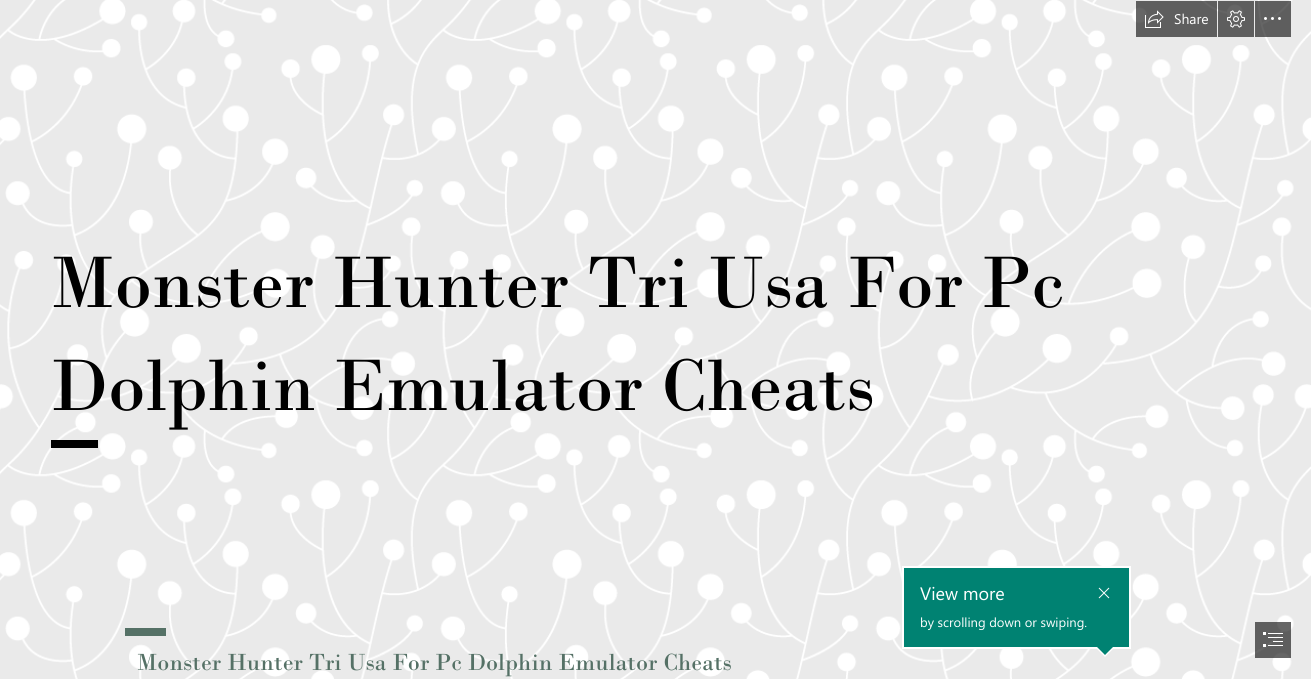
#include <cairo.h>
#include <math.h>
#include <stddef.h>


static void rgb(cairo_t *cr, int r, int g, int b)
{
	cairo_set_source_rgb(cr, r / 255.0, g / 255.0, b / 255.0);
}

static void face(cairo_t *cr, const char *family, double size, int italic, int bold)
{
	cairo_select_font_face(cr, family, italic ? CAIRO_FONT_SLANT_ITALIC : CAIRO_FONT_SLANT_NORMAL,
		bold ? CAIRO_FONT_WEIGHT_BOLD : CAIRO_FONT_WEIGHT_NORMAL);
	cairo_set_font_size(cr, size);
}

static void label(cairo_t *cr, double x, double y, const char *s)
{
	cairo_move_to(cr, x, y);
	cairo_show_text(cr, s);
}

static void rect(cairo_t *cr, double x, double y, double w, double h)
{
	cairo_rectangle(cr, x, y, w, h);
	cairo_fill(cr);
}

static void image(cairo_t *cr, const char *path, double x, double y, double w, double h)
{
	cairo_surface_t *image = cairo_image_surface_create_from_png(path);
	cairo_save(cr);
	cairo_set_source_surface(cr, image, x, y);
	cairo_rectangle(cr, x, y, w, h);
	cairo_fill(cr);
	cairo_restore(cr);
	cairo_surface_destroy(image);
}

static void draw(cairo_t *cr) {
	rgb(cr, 234, 234, 234);
	cairo_paint(cr);
	image(cr, "image3.png", 0, 0, 1311, 679);
	cairo_set_source_rgba(cr, 0, 0, 0, 0.6);
	rect(cr, 1136, 1, 81, 36);
	image(cr, "image0.png", 1145, 10, 19, 18);
	face(cr, "Segoe UI", 14, 0, 0);
	rgb(cr, 255, 255, 255);
	label(cr, 1174, 24, "Share");
	cairo_set_source_rgba(cr, 0, 0, 0, 0.6);
	rect(cr, 1218, 1, 36, 36);
	image(cr, "image1.png", 1227, 10, 18, 18);
	rect(cr, 1255, 1, 36, 36);
	image(cr, "image2.png", 1264, 17, 17, 3);
	face(cr, "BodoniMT", 76.75, 0, 0);
	rgb(cr, 0, 0, 0);
	label(cr, 51, 307, "Monster Hunter Tri Usa For Pc");
	label(cr, 51, 410, "Dolphin Emulator Cheats");
	rect(cr, 51, 440, 47, 8);
	rgb(cr, 85, 113, 102);
	rect(cr, 125, 628, 41, 8);
	face(cr, "BodoniMT", 24.6, 0, 0);
	label(cr, 137, 670, "Monster Hunter Tri Usa For Pc Dolphin Emulator Cheats");
	rgb(cr, 0, 130, 114);
	cairo_rectangle(cr, 903, 567, 227, 81);
	cairo_fill_preserve(cr);
	rgb(cr, 255, 255, 255);
	cairo_stroke(cr);
	face(cr, "Segoe UI", 18, 0, 0);
	label(cr, 920, 600, "View more");
	face(cr, "Segoe UI", 13, 0, 0);
	label(cr, 920, 627, "by scrolling down or swiping.");
	image(cr, "image4.png", 1098, 587, 12, 12);
	cairo_new_path(cr);
	cairo_move_to(cr, 1095, 647);
	cairo_line_to(cr, 1115, 647);
	cairo_line_to(cr, 1105, 657);
	cairo_close_path(cr);
	cairo_fill(cr);
	rgb(cr, 0, 130, 114);
	cairo_new_path(cr);
	cairo_move_to(cr, 1097, 647);
	cairo_line_to(cr, 1113, 647);
	cairo_line_to(cr, 1105, 655);
	cairo_close_path(cr);
	cairo_fill(cr);
	cairo_set_source_rgba(cr, 0, 0, 0, 0.6);
	rect(cr, 1255, 622, 36, 36);
	image(cr, "image5.png", 1263, 632, 20, 15);
}

int main(void) {
	cairo_surface_t *surface = cairo_image_surface_create(CAIRO_FORMAT_RGB24, 1311, 679);
	cairo_t *cr = cairo_create(surface);
	cairo_font_options_t *options = cairo_font_options_create();
	cairo_font_options_set_hint_metrics(options, CAIRO_HINT_METRICS_OFF);
	cairo_font_options_set_hint_style(options, CAIRO_HINT_STYLE_NONE);
	cairo_set_font_options(cr, options);
	cairo_set_miter_limit(cr, 4);
	draw(cr);
	cairo_surface_write_to_png(surface, "render.png");
	cairo_font_options_destroy(options);
	cairo_destroy(cr);
	cairo_surface_destroy(surface);
	return 0;
}
